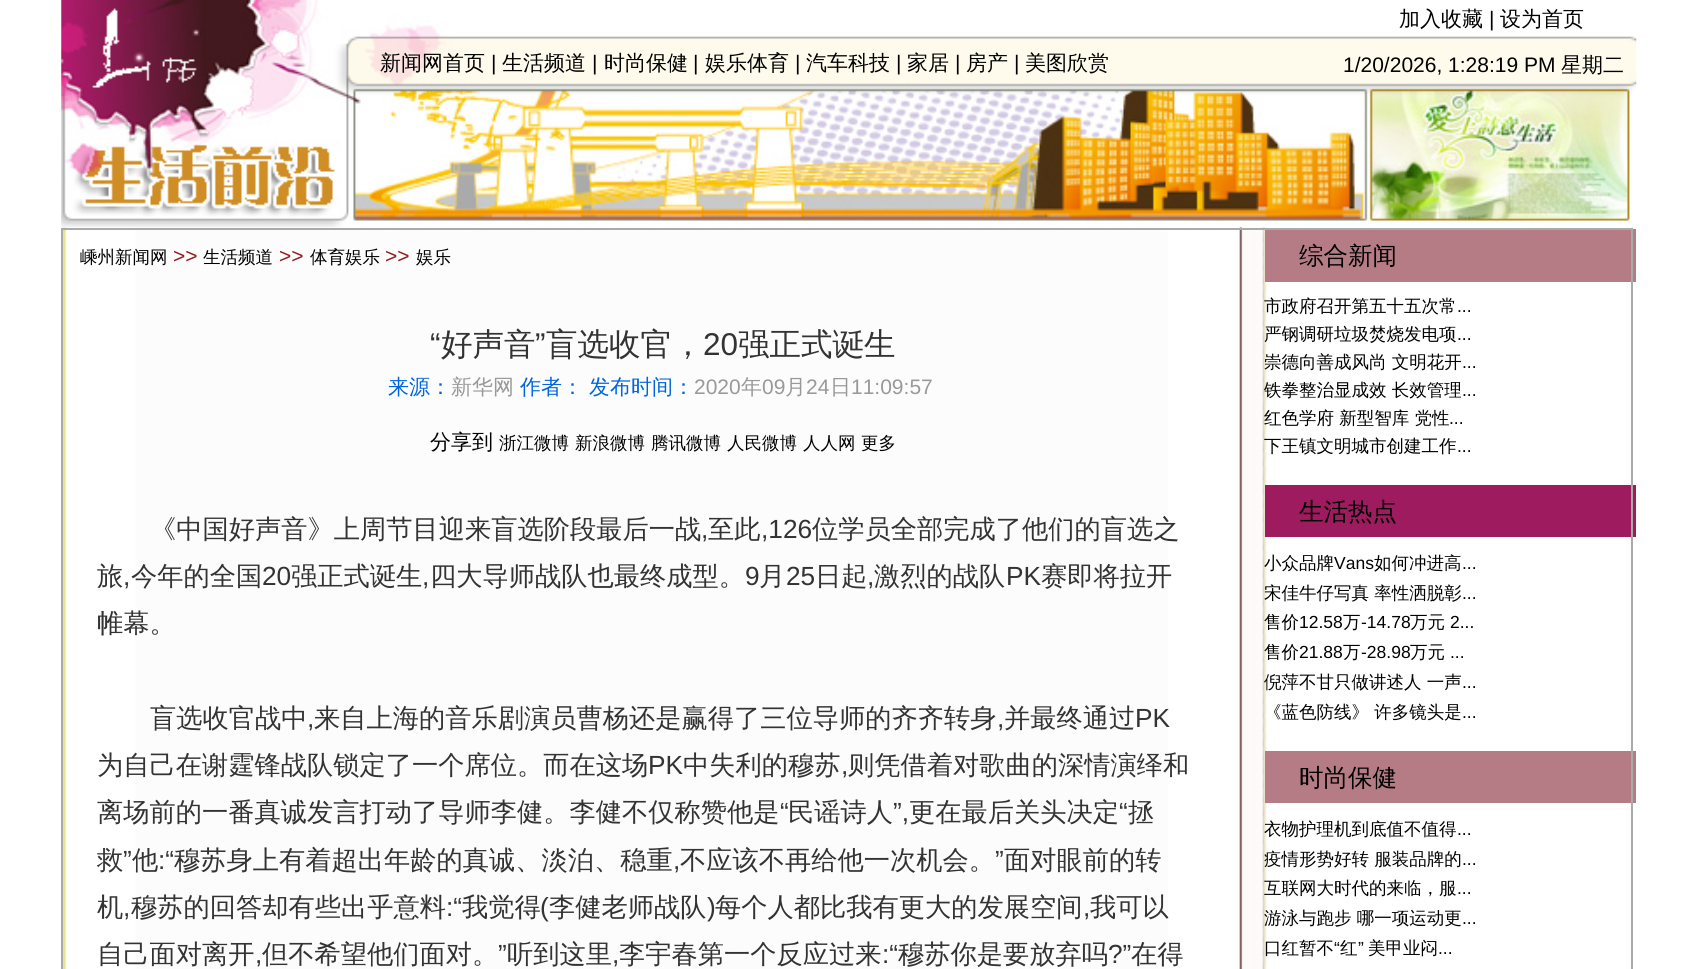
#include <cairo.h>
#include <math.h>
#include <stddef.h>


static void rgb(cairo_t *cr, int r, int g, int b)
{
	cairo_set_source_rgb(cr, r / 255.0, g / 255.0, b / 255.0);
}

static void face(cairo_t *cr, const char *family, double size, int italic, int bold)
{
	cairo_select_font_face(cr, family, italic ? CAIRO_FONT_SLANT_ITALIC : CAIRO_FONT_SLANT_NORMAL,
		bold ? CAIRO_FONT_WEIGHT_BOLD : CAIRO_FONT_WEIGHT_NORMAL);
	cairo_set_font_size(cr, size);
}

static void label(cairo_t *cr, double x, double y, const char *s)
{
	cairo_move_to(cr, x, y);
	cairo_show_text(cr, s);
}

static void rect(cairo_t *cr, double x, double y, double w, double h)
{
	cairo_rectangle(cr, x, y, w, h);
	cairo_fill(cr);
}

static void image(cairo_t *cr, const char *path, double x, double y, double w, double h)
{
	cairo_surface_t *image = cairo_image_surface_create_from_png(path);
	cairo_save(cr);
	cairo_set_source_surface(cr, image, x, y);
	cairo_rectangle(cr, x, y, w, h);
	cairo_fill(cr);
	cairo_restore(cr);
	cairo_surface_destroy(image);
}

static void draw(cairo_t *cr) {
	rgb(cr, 255, 255, 255);
	cairo_paint(cr);
	image(cr, "image0.png", 61, 0, 1576, 228);
	face(cr, "WenQuanYi Zen Hei Medium", 21, 0, 0);
	rgb(cr, 0, 0, 0);
	label(cr, 1399, 26, "加入收藏");
	face(cr, "Liberation Sans", 21, 0, 0);
	label(cr, 1489, 26, "|");
	face(cr, "WenQuanYi Zen Hei Medium", 21, 0, 0);
	label(cr, 1500, 26, "设为首页");
	label(cr, 380, 70, "新闻网首页");
	face(cr, "Liberation Sans", 21, 0, 0);
	label(cr, 491, 70, "|");
	face(cr, "WenQuanYi Zen Hei Medium", 21, 0, 0);
	label(cr, 502, 70, "生活频道");
	face(cr, "Liberation Sans", 21, 0, 0);
	label(cr, 592, 70, "|");
	face(cr, "WenQuanYi Zen Hei Medium", 21, 0, 0);
	label(cr, 604, 70, "时尚保健");
	face(cr, "Liberation Sans", 21, 0, 0);
	label(cr, 693, 70, "|");
	face(cr, "WenQuanYi Zen Hei Medium", 21, 0, 0);
	label(cr, 705, 70, "娱乐体育");
	face(cr, "Liberation Sans", 21, 0, 0);
	label(cr, 795, 70, "|");
	face(cr, "WenQuanYi Zen Hei Medium", 21, 0, 0);
	label(cr, 806, 70, "汽车科技");
	face(cr, "Liberation Sans", 21, 0, 0);
	label(cr, 896, 70, "|");
	face(cr, "WenQuanYi Zen Hei Medium", 21, 0, 0);
	label(cr, 907, 70, "家居");
	face(cr, "Liberation Sans", 21, 0, 0);
	label(cr, 955, 70, "|");
	face(cr, "WenQuanYi Zen Hei Medium", 21, 0, 0);
	label(cr, 966, 70, "房产");
	face(cr, "Liberation Sans", 21, 0, 0);
	label(cr, 1014, 70, "|");
	face(cr, "WenQuanYi Zen Hei Medium", 21, 0, 0);
	label(cr, 1025, 70, "美图欣赏");
	face(cr, "Liberation Sans", 21, 0, 0);
	label(cr, 1343, 72, "1/20/2026, 1:28:19 PM");
	face(cr, "WenQuanYi Zen Hei Medium", 21, 0, 0);
	label(cr, 1561, 72, "星期二");
	image(cr, "image1.png", 61, 227, 1572, 742);
	rgb(cr, 182, 124, 133);
	rect(cr, 1265, 229, 371, 53);
	rgb(cr, 169, 171, 168);
	rect(cr, 61, 228, 1572, 2);
	rgb(cr, 158, 27, 95);
	rect(cr, 1265, 485, 371, 52);
	rgb(cr, 182, 124, 133);
	rect(cr, 1265, 751, 371, 52);
	rgb(cr, 169, 171, 168);
	rect(cr, 1631, 228, 2, 741);
	rect(cr, 61, 228, 2, 741);
	face(cr, "WenQuanYi Zen Hei Medium", 17.5, 0, 0);
	rgb(cr, 0, 0, 0);
	label(cr, 80, 263, "嵊州新闻网");
	face(cr, "Liberation Sans", 21, 0, 0);
	rgb(cr, 143, 28, 31);
	label(cr, 173, 263, ">>");
	face(cr, "WenQuanYi Zen Hei Medium", 17.5, 0, 0);
	rgb(cr, 0, 0, 0);
	label(cr, 203, 263, "生活频道");
	face(cr, "Liberation Sans", 21, 0, 0);
	rgb(cr, 143, 28, 31);
	label(cr, 279, 263, ">>");
	face(cr, "WenQuanYi Zen Hei Medium", 17.5, 0, 0);
	rgb(cr, 0, 0, 0);
	label(cr, 310, 263, "体育娱乐");
	face(cr, "Liberation Sans", 21, 0, 0);
	rgb(cr, 143, 28, 31);
	label(cr, 385, 263, ">>");
	face(cr, "WenQuanYi Zen Hei Medium", 17.5, 0, 0);
	rgb(cr, 0, 0, 0);
	label(cr, 416, 263, "娱乐");
	face(cr, "Liberation Sans", 31.5, 0, 0);
	rgb(cr, 51, 51, 51);
	label(cr, 430, 355, "“");
	face(cr, "WenQuanYi Zen Hei Medium", 31.5, 0, 0);
	label(cr, 441, 355, "好声音");
	face(cr, "Liberation Sans", 31.5, 0, 0);
	label(cr, 535, 355, "”");
	face(cr, "WenQuanYi Zen Hei Medium", 31.5, 0, 0);
	label(cr, 546, 355, "盲选收官，");
	face(cr, "Liberation Sans", 31.5, 0, 0);
	label(cr, 703, 355, "20");
	face(cr, "WenQuanYi Zen Hei Medium", 31.5, 0, 0);
	label(cr, 738, 355, "强正式诞生");
	face(cr, "WenQuanYi Zen Hei Medium", 21, 0, 0);
	rgb(cr, 0, 100, 222);
	label(cr, 388, 394, "来源：");
	rgb(cr, 153, 153, 153);
	label(cr, 451, 394, "新华网");
	rgb(cr, 0, 100, 222);
	label(cr, 520, 394, "作者：");
	label(cr, 589, 394, "发布时间：");
	face(cr, "Liberation Sans", 21, 0, 0);
	rgb(cr, 153, 153, 153);
	label(cr, 694, 394, "2020");
	face(cr, "WenQuanYi Zen Hei Medium", 21, 0, 0);
	label(cr, 741, 394, "年");
	face(cr, "Liberation Sans", 21, 0, 0);
	label(cr, 762, 394, "09");
	face(cr, "WenQuanYi Zen Hei Medium", 21, 0, 0);
	label(cr, 785, 394, "月");
	face(cr, "Liberation Sans", 21, 0, 0);
	label(cr, 806, 394, "24");
	face(cr, "WenQuanYi Zen Hei Medium", 21, 0, 0);
	label(cr, 830, 394, "日");
	face(cr, "Liberation Sans", 21, 0, 0);
	label(cr, 851, 394, "11:09:57");
	face(cr, "WenQuanYi Zen Hei Medium", 21, 0, 0);
	rgb(cr, 0, 0, 0);
	label(cr, 430, 449, "分享到");
	face(cr, "WenQuanYi Zen Hei Medium", 17.5, 0, 0);
	label(cr, 499, 449, "浙江微博");
	label(cr, 575, 449, "新浪微博");
	label(cr, 651, 449, "腾讯微博");
	label(cr, 727, 449, "人民微博");
	label(cr, 803, 449, "人人网");
	label(cr, 861, 449, "更多");
	face(cr, "WenQuanYi Zen Hei Medium", 26.25, 0, 0);
	rgb(cr, 51, 51, 51);
	label(cr, 150, 538, "《中国好声音》上周节目迎来盲选阶段最后一战");
	face(cr, "Liberation Sans", 26.25, 0, 0);
	label(cr, 701, 538, ",");
	face(cr, "WenQuanYi Zen Hei Medium", 26.25, 0, 0);
	label(cr, 708, 538, "至此");
	face(cr, "Liberation Sans", 26.25, 0, 0);
	label(cr, 761, 538, ",126");
	face(cr, "WenQuanYi Zen Hei Medium", 26.25, 0, 0);
	label(cr, 812, 538, "位学员全部完成了他们的盲选之");
	label(cr, 97, 585, "旅");
	face(cr, "Liberation Sans", 26.25, 0, 0);
	label(cr, 123, 585, ",");
	face(cr, "WenQuanYi Zen Hei Medium", 26.25, 0, 0);
	label(cr, 131, 585, "今年的全国");
	face(cr, "Liberation Sans", 26.25, 0, 0);
	label(cr, 262, 585, "20");
	face(cr, "WenQuanYi Zen Hei Medium", 26.25, 0, 0);
	label(cr, 291, 585, "强正式诞生");
	face(cr, "Liberation Sans", 26.25, 0, 0);
	label(cr, 422, 585, ",");
	face(cr, "WenQuanYi Zen Hei Medium", 26.25, 0, 0);
	label(cr, 430, 585, "四大导师战队也最终成型。");
	face(cr, "Liberation Sans", 26.25, 0, 0);
	label(cr, 745, 585, "9");
	face(cr, "WenQuanYi Zen Hei Medium", 26.25, 0, 0);
	label(cr, 759, 585, "月");
	face(cr, "Liberation Sans", 26.25, 0, 0);
	label(cr, 786, 585, "25");
	face(cr, "WenQuanYi Zen Hei Medium", 26.25, 0, 0);
	label(cr, 815, 585, "日起");
	face(cr, "Liberation Sans", 26.25, 0, 0);
	label(cr, 867, 585, ",");
	face(cr, "WenQuanYi Zen Hei Medium", 26.25, 0, 0);
	label(cr, 874, 585, "激烈的战队");
	face(cr, "Liberation Sans", 26.25, 0, 0);
	label(cr, 1006, 585, "PK");
	face(cr, "WenQuanYi Zen Hei Medium", 26.25, 0, 0);
	label(cr, 1041, 585, "赛即将拉开");
	label(cr, 97, 632, "帷幕。");
	label(cr, 150, 727, "盲选收官战中");
	face(cr, "Liberation Sans", 26.25, 0, 0);
	label(cr, 307, 727, ",");
	face(cr, "WenQuanYi Zen Hei Medium", 26.25, 0, 0);
	label(cr, 314, 727, "来自上海的音乐剧演员曹杨还是赢得了三位导师的齐齐转身");
	face(cr, "Liberation Sans", 26.25, 0, 0);
	label(cr, 997, 727, ",");
	face(cr, "WenQuanYi Zen Hei Medium", 26.25, 0, 0);
	label(cr, 1004, 727, "并最终通过");
	face(cr, "Liberation Sans", 26.25, 0, 0);
	label(cr, 1135, 727, "PK");
	face(cr, "WenQuanYi Zen Hei Medium", 26.25, 0, 0);
	label(cr, 97, 774, "为自己在谢霆锋战队锁定了一个席位。而在这场");
	face(cr, "Liberation Sans", 26.25, 0, 0);
	label(cr, 648, 774, "PK");
	face(cr, "WenQuanYi Zen Hei Medium", 26.25, 0, 0);
	label(cr, 683, 774, "中失利的穆苏");
	face(cr, "Liberation Sans", 26.25, 0, 0);
	label(cr, 841, 774, ",");
	face(cr, "WenQuanYi Zen Hei Medium", 26.25, 0, 0);
	label(cr, 848, 774, "则凭借着对歌曲的深情演绎和");
	label(cr, 97, 821, "离场前的一番真诚发言打动了导师李健。李健不仅称赞他是");
	face(cr, "Liberation Sans", 26.25, 0, 0);
	label(cr, 780, 821, "“");
	face(cr, "WenQuanYi Zen Hei Medium", 26.25, 0, 0);
	label(cr, 788, 821, "民谣诗人");
	face(cr, "Liberation Sans", 26.25, 0, 0);
	label(cr, 893, 821, "”,");
	face(cr, "WenQuanYi Zen Hei Medium", 26.25, 0, 0);
	label(cr, 909, 821, "更在最后关头决定");
	face(cr, "Liberation Sans", 26.25, 0, 0);
	label(cr, 1119, 821, "“");
	face(cr, "WenQuanYi Zen Hei Medium", 26.25, 0, 0);
	label(cr, 1128, 821, "拯");
	label(cr, 97, 869, "救");
	face(cr, "Liberation Sans", 26.25, 0, 0);
	label(cr, 123, 869, "”");
	face(cr, "WenQuanYi Zen Hei Medium", 26.25, 0, 0);
	label(cr, 132, 869, "他");
	face(cr, "Liberation Sans", 26.25, 0, 0);
	label(cr, 158, 869, ":“");
	face(cr, "WenQuanYi Zen Hei Medium", 26.25, 0, 0);
	label(cr, 174, 869, "穆苏身上有着超出年龄的真诚、淡泊、稳重");
	label(cr, 680, 869, "不应该不再给他一次机会。");
	face(cr, "Liberation Sans", 26.25, 0, 0);
	label(cr, 995, 869, "”");
	face(cr, "WenQuanYi Zen Hei Medium", 26.25, 0, 0);
	label(cr, 1004, 869, "面对眼前的转");
	face(cr, "Liberation Sans", 26.25, 0, 0);
	label(cr, 673, 869, ",");
	face(cr, "WenQuanYi Zen Hei Medium", 26.25, 0, 0);
	label(cr, 97, 916, "机");
	face(cr, "Liberation Sans", 26.25, 0, 0);
	label(cr, 123, 916, ",");
	face(cr, "WenQuanYi Zen Hei Medium", 26.25, 0, 0);
	label(cr, 131, 916, "穆苏的回答却有些出乎意料");
	face(cr, "Liberation Sans", 26.25, 0, 0);
	label(cr, 446, 916, ":“");
	face(cr, "WenQuanYi Zen Hei Medium", 26.25, 0, 0);
	label(cr, 462, 916, "我觉得");
	face(cr, "Liberation Sans", 26.25, 0, 0);
	label(cr, 540, 916, "(");
	face(cr, "WenQuanYi Zen Hei Medium", 26.25, 0, 0);
	label(cr, 549, 916, "李健老师战队");
	face(cr, "Liberation Sans", 26.25, 0, 0);
	label(cr, 707, 916, ")");
	face(cr, "WenQuanYi Zen Hei Medium", 26.25, 0, 0);
	label(cr, 715, 916, "每个人都比我有更大的发展空间");
	face(cr, "Liberation Sans", 26.25, 0, 0);
	label(cr, 1083, 916, ",");
	face(cr, "WenQuanYi Zen Hei Medium", 26.25, 0, 0);
	label(cr, 1090, 916, "我可以");
	label(cr, 97, 963, "自己面对离开");
	face(cr, "Liberation Sans", 26.25, 0, 0);
	label(cr, 255, 963, ",");
	face(cr, "WenQuanYi Zen Hei Medium", 26.25, 0, 0);
	label(cr, 262, 963, "但不希望他们面对。");
	face(cr, "Liberation Sans", 26.25, 0, 0);
	label(cr, 498, 963, "”");
	face(cr, "WenQuanYi Zen Hei Medium", 26.25, 0, 0);
	label(cr, 507, 963, "听到这里");
	face(cr, "Liberation Sans", 26.25, 0, 0);
	label(cr, 612, 963, ",");
	face(cr, "WenQuanYi Zen Hei Medium", 26.25, 0, 0);
	label(cr, 619, 963, "李宇春第一个反应过来");
	face(cr, "Liberation Sans", 26.25, 0, 0);
	label(cr, 882, 963, ":“");
	face(cr, "WenQuanYi Zen Hei Medium", 26.25, 0, 0);
	label(cr, 898, 963, "穆苏你是要放弃吗");
	face(cr, "Liberation Sans", 26.25, 0, 0);
	label(cr, 1108, 963, "?”");
	face(cr, "WenQuanYi Zen Hei Medium", 26.25, 0, 0);
	label(cr, 1131, 963, "在得");
	face(cr, "WenQuanYi Zen Hei Medium", 24.5, 0, 0);
	rgb(cr, 0, 0, 0);
	label(cr, 1299, 264, "综合新闻");
	face(cr, "WenQuanYi Zen Hei Medium", 17.5, 0, 0);
	label(cr, 1264, 312, "市政府召开第五十五次常");
	face(cr, "Liberation Sans", 17.5, 0, 0);
	label(cr, 1457, 312, "...");
	face(cr, "WenQuanYi Zen Hei Medium", 17.5, 0, 0);
	label(cr, 1264, 340, "严钢调研垃圾焚烧发电项");
	face(cr, "Liberation Sans", 17.5, 0, 0);
	label(cr, 1457, 340, "...");
	face(cr, "WenQuanYi Zen Hei Medium", 17.5, 0, 0);
	label(cr, 1264, 368, "崇德向善成风尚 文明花开");
	face(cr, "Liberation Sans", 17.5, 0, 0);
	label(cr, 1462, 368, "...");
	face(cr, "WenQuanYi Zen Hei Medium", 17.5, 0, 0);
	label(cr, 1264, 396, "铁拳整治显成效 长效管理");
	face(cr, "Liberation Sans", 17.5, 0, 0);
	label(cr, 1462, 396, "...");
	face(cr, "WenQuanYi Zen Hei Medium", 17.5, 0, 0);
	label(cr, 1264, 424, "红色学府 新型智库 党性");
	face(cr, "Liberation Sans", 17.5, 0, 0);
	label(cr, 1449, 424, "...");
	face(cr, "WenQuanYi Zen Hei Medium", 17.5, 0, 0);
	label(cr, 1264, 452, "下王镇文明城市创建工作");
	face(cr, "Liberation Sans", 17.5, 0, 0);
	label(cr, 1457, 452, "...");
	face(cr, "WenQuanYi Zen Hei Medium", 24.5, 0, 0);
	label(cr, 1299, 520, "生活热点");
	face(cr, "WenQuanYi Zen Hei Medium", 17.5, 0, 0);
	label(cr, 1264, 569, "小众品牌");
	face(cr, "Liberation Sans", 17.5, 0, 0);
	label(cr, 1334, 569, "Vans");
	face(cr, "WenQuanYi Zen Hei Medium", 17.5, 0, 0);
	label(cr, 1374, 569, "如何冲进高");
	face(cr, "Liberation Sans", 17.5, 0, 0);
	label(cr, 1462, 569, "...");
	face(cr, "WenQuanYi Zen Hei Medium", 17.5, 0, 0);
	label(cr, 1264, 599, "宋佳牛仔写真 率性洒脱彰");
	face(cr, "Liberation Sans", 17.5, 0, 0);
	label(cr, 1462, 599, "...");
	face(cr, "WenQuanYi Zen Hei Medium", 17.5, 0, 0);
	label(cr, 1264, 628, "售价");
	face(cr, "Liberation Sans", 17.5, 0, 0);
	label(cr, 1299, 628, "12.58");
	face(cr, "WenQuanYi Zen Hei Medium", 17.5, 0, 0);
	label(cr, 1343, 628, "万");
	face(cr, "Liberation Sans", 17.5, 0, 0);
	label(cr, 1361, 628, "-14.78");
	face(cr, "WenQuanYi Zen Hei Medium", 17.5, 0, 0);
	label(cr, 1410, 628, "万元");
	face(cr, "Liberation Sans", 17.5, 0, 0);
	label(cr, 1450, 628, "2...");
	face(cr, "WenQuanYi Zen Hei Medium", 17.5, 0, 0);
	label(cr, 1264, 658, "售价");
	face(cr, "Liberation Sans", 17.5, 0, 0);
	label(cr, 1299, 658, "21.88");
	face(cr, "WenQuanYi Zen Hei Medium", 17.5, 0, 0);
	label(cr, 1343, 658, "万");
	face(cr, "Liberation Sans", 17.5, 0, 0);
	label(cr, 1361, 658, "-28.98");
	face(cr, "WenQuanYi Zen Hei Medium", 17.5, 0, 0);
	label(cr, 1410, 658, "万元");
	face(cr, "Liberation Sans", 17.5, 0, 0);
	label(cr, 1450, 658, "...");
	face(cr, "WenQuanYi Zen Hei Medium", 17.5, 0, 0);
	label(cr, 1264, 688, "倪萍不甘只做讲述人 一声");
	face(cr, "Liberation Sans", 17.5, 0, 0);
	label(cr, 1462, 688, "...");
	face(cr, "WenQuanYi Zen Hei Medium", 17.5, 0, 0);
	label(cr, 1264, 718, "《蓝色防线》 许多镜头是");
	face(cr, "Liberation Sans", 17.5, 0, 0);
	label(cr, 1462, 718, "...");
	face(cr, "WenQuanYi Zen Hei Medium", 24.5, 0, 0);
	label(cr, 1299, 786, "时尚保健");
	face(cr, "WenQuanYi Zen Hei Medium", 17.5, 0, 0);
	label(cr, 1264, 835, "衣物护理机到底值不值得");
	face(cr, "Liberation Sans", 17.5, 0, 0);
	label(cr, 1457, 835, "...");
	face(cr, "WenQuanYi Zen Hei Medium", 17.5, 0, 0);
	label(cr, 1264, 865, "疫情形势好转 服装品牌的");
	face(cr, "Liberation Sans", 17.5, 0, 0);
	label(cr, 1462, 865, "...");
	face(cr, "WenQuanYi Zen Hei Medium", 17.5, 0, 0);
	label(cr, 1264, 894, "互联网大时代的来临，服");
	face(cr, "Liberation Sans", 17.5, 0, 0);
	label(cr, 1457, 894, "...");
	face(cr, "WenQuanYi Zen Hei Medium", 17.5, 0, 0);
	label(cr, 1264, 924, "游泳与跑步 哪一项运动更");
	face(cr, "Liberation Sans", 17.5, 0, 0);
	label(cr, 1462, 924, "...");
	face(cr, "WenQuanYi Zen Hei Medium", 17.5, 0, 0);
	label(cr, 1264, 954, "口红暂不");
	face(cr, "Liberation Sans", 17.5, 0, 0);
	label(cr, 1334, 954, "“");
	face(cr, "WenQuanYi Zen Hei Medium", 17.5, 0, 0);
	label(cr, 1340, 954, "红");
	face(cr, "Liberation Sans", 17.5, 0, 0);
	label(cr, 1358, 954, "”");
	face(cr, "WenQuanYi Zen Hei Medium", 17.5, 0, 0);
	label(cr, 1368, 954, "美甲业闷");
	face(cr, "Liberation Sans", 17.5, 0, 0);
	label(cr, 1438, 954, "...");
}

int main(void) {
	cairo_surface_t *surface = cairo_image_surface_create(CAIRO_FORMAT_RGB24, 1695, 969);
	cairo_t *cr = cairo_create(surface);
	cairo_font_options_t *options = cairo_font_options_create();
	cairo_font_options_set_hint_metrics(options, CAIRO_HINT_METRICS_OFF);
	cairo_font_options_set_hint_style(options, CAIRO_HINT_STYLE_NONE);
	cairo_set_font_options(cr, options);
	cairo_set_miter_limit(cr, 4);
	draw(cr);
	cairo_surface_write_to_png(surface, "render.png");
	cairo_font_options_destroy(options);
	cairo_destroy(cr);
	cairo_surface_destroy(surface);
	return 0;
}
